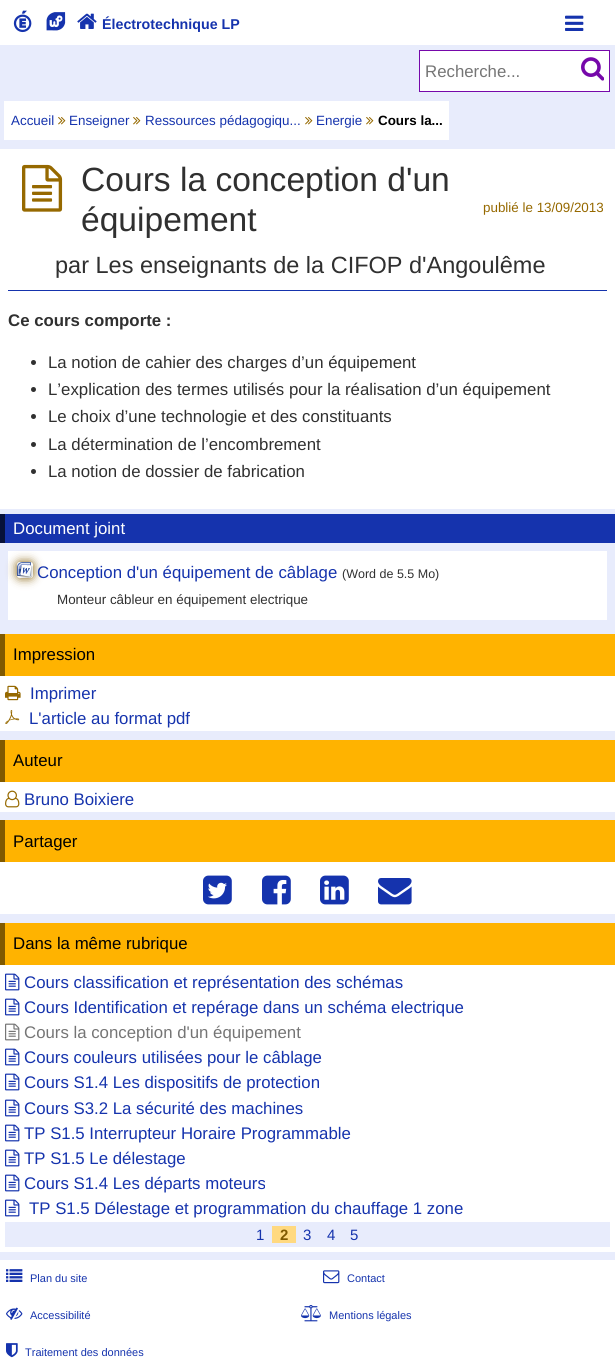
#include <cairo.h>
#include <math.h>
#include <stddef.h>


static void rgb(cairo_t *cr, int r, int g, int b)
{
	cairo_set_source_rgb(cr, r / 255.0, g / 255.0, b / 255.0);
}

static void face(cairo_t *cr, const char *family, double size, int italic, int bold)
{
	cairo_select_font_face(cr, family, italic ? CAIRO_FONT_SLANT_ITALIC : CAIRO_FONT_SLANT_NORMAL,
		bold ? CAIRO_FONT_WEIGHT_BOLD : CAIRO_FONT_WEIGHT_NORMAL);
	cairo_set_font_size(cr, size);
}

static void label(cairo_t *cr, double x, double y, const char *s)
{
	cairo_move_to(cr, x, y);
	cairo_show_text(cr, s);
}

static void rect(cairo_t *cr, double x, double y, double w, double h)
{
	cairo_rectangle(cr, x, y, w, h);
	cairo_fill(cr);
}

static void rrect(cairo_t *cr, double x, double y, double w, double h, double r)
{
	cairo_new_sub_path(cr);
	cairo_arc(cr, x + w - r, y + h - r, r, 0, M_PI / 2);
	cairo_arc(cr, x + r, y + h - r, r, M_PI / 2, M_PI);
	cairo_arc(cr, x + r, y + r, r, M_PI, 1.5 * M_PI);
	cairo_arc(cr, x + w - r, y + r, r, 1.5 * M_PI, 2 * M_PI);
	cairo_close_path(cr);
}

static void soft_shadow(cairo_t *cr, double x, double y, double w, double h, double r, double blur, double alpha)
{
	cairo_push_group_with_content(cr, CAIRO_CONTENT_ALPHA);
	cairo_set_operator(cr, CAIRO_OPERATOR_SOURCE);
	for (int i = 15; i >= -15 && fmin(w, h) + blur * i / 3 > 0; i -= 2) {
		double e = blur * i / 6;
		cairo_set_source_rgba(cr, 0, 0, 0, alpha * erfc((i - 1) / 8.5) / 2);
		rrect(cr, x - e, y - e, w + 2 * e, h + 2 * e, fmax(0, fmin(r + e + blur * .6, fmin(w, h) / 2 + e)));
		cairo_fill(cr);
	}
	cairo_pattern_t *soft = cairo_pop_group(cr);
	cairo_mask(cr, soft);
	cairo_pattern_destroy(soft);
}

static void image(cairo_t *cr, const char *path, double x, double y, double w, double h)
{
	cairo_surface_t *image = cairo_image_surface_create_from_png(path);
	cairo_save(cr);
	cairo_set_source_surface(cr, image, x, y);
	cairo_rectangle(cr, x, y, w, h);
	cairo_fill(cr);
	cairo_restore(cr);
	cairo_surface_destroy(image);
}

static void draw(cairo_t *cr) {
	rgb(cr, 232, 236, 252);
	cairo_paint(cr);
	rgb(cr, 255, 255, 255);
	rect(cr, 0, 0, 615, 45);
	image(cr, "image0.png", 13, 10, 19, 23);
	image(cr, "image1.png", 46, 12, 20, 19);
	image(cr, "image2.png", 77, 13, 20, 16);
	face(cr, "Liberation Sans", 14.25, 0, 1);
	rgb(cr, 21, 51, 173);
	label(cr, 102, 29, "Électrotechnique LP");
	image(cr, "image3.png", 565, 15, 19, 16);
	rgb(cr, 255, 255, 255);
	cairo_rectangle(cr, 419.5, 50.5, 190, 41);
	cairo_fill_preserve(cr);
	rgb(cr, 118, 8, 170);
	cairo_set_line_width(cr, 1);
	cairo_stroke(cr);
	face(cr, "Liberation Sans", 16.8, 0, 0);
	rgb(cr, 117, 117, 117);
	label(cr, 425, 77, "Recherche...");
	image(cr, "image4.png", 581, 57, 23, 24);
	rgb(cr, 255, 255, 255);
	rect(cr, 4, 101, 445, 39);
	face(cr, "Liberation Sans", 13.4, 0, 0);
	rgb(cr, 21, 51, 173);
	label(cr, 11, 125, "Accueil");
	image(cr, "image5.png", 58, 117, 8, 8);
	label(cr, 69, 125, "Enseigner");
	image(cr, "image5.png", 133, 117, 8, 8);
	label(cr, 145, 125, "Ressources pédagogiqu...");
	image(cr, "image5.png", 305, 117, 8, 8);
	label(cr, 316, 125, "Energie");
	image(cr, "image5.png", 366, 117, 8, 8);
	face(cr, "Liberation Sans", 13.4, 0, 1);
	rgb(cr, 0, 0, 0);
	label(cr, 378, 125, "Cours la...");
	rgb(cr, 255, 255, 255);
	rect(cr, 0, 149, 615, 360);
	image(cr, "image6.png", 22, 164, 41, 48);
	face(cr, "Liberation Sans", 33.6, 0, 0);
	rgb(cr, 48, 48, 48);
	label(cr, 81, 191, "Cours la conception d'un");
	label(cr, 81, 231, "équipement");
	face(cr, "Liberation Sans", 13.4, 0, 0);
	rgb(cr, 150, 105, 0);
	label(cr, 483, 212, "publié le 13/09/2013");
	face(cr, "Liberation Sans", 23.5, 0, 0);
	rgb(cr, 48, 48, 48);
	label(cr, 55, 273, "par Les enseignants de la CIFOP d'Angoulême");
	rgb(cr, 21, 51, 173);
	rect(cr, 8, 290, 599, 1);
	face(cr, "Liberation Sans", 16.8, 0, 1);
	rgb(cr, 48, 48, 48);
	label(cr, 8, 326, "Ce cours comporte :");
	cairo_new_path(cr);
	cairo_arc(cr, 33.5, 362.5, 2.5, 0, 2 * M_PI);
	cairo_fill(cr);
	face(cr, "Liberation Sans", 16.8, 0, 0);
	label(cr, 48, 368, "La notion de cahier des charges d’un équipement");
	cairo_new_path(cr);
	cairo_arc(cr, 33.5, 389.5, 2.5, 0, 2 * M_PI);
	cairo_fill(cr);
	label(cr, 48, 395, "L’explication des termes utilisés pour la réalisation d’un équipement");
	cairo_new_path(cr);
	cairo_arc(cr, 33.5, 416.5, 2.5, 0, 2 * M_PI);
	cairo_fill(cr);
	label(cr, 48, 422, "Le choix d’une technologie et des constituants");
	cairo_new_path(cr);
	cairo_arc(cr, 33.5, 444.5, 2.5, 0, 2 * M_PI);
	cairo_fill(cr);
	label(cr, 48, 450, "La détermination de l’encombrement");
	cairo_new_path(cr);
	cairo_arc(cr, 33.5, 471.5, 2.5, 0, 2 * M_PI);
	cairo_fill(cr);
	label(cr, 48, 477, "La notion de dossier de fabrication");
	rgb(cr, 21, 51, 173);
	rect(cr, 5, 514, 610, 29);
	rgb(cr, 7, 17, 57);
	rect(cr, 0, 514, 5, 29);
	rgb(cr, 255, 255, 255);
	label(cr, 13, 534, "Document joint");
	rect(cr, 8, 551, 599, 69);
	rgb(cr, 128, 89, 0);
	soft_shadow(cr, 17, 562, 16, 16, 3, 5, 1);
	image(cr, "image7.png", 17, 562, 16, 16);
	rgb(cr, 21, 51, 173);
	label(cr, 37, 578, "Conception d'un équipement de câblage");
	face(cr, "Liberation Sans", 12.5, 0, 0);
	rgb(cr, 48, 48, 48);
	label(cr, 342, 578, "(Word de 5.5 Mo)");
	face(cr, "Liberation Sans", 13.4, 0, 0);
	label(cr, 57, 604, "Monteur câbleur en équipement electrique");
	rgb(cr, 255, 255, 255);
	rect(cr, 0, 676, 615, 55);
	rgb(cr, 255, 179, 0);
	rect(cr, 5, 634, 610, 42);
	rgb(cr, 128, 89, 0);
	rect(cr, 0, 634, 5, 42);
	face(cr, "Liberation Sans", 16.8, 0, 0);
	rgb(cr, 0, 0, 0);
	label(cr, 13, 660, "Impression");
	image(cr, "image8.png", 5, 685, 16, 16);
	rgb(cr, 21, 51, 173);
	label(cr, 30, 699, "Imprimer");
	image(cr, "image9.png", 5, 710, 15, 14);
	label(cr, 29, 724, "L'article au format pdf");
	rgb(cr, 255, 255, 255);
	rect(cr, 0, 782, 615, 30);
	rgb(cr, 255, 179, 0);
	rect(cr, 5, 740, 610, 42);
	rgb(cr, 128, 89, 0);
	rect(cr, 0, 740, 5, 42);
	rgb(cr, 0, 0, 0);
	label(cr, 13, 766, "Auteur");
	image(cr, "image10.png", 5, 790, 15, 18);
	rgb(cr, 21, 51, 173);
	label(cr, 24, 805, "Bruno Boixiere");
	rgb(cr, 255, 255, 255);
	rect(cr, 0, 862, 615, 52);
	rgb(cr, 255, 179, 0);
	rect(cr, 5, 820, 610, 42);
	rgb(cr, 128, 89, 0);
	rect(cr, 0, 820, 5, 42);
	rgb(cr, 0, 0, 0);
	label(cr, 13, 847, "Partager");
	image(cr, "image11.png", 203, 875, 29, 30);
	image(cr, "image12.png", 262, 875, 29, 30);
	image(cr, "image13.png", 320, 875, 29, 30);
	image(cr, "image14.png", 378, 878, 34, 27);
	rgb(cr, 255, 255, 255);
	rect(cr, 0, 965, 615, 287);
	rgb(cr, 255, 179, 0);
	rect(cr, 5, 923, 610, 42);
	rgb(cr, 128, 89, 0);
	rect(cr, 0, 923, 5, 42);
	rgb(cr, 0, 0, 0);
	label(cr, 13, 949, "Dans la même rubrique");
	image(cr, "image15.png", 5, 973, 15, 18);
	rgb(cr, 21, 51, 173);
	label(cr, 24, 988, "Cours classification et représentation des schémas");
	image(cr, "image15.png", 5, 998, 15, 18);
	label(cr, 24, 1013, "Cours Identification et repérage dans un schéma electrique");
	image(cr, "image16.png", 5, 1023, 15, 18);
	rgb(cr, 117, 117, 117);
	label(cr, 24, 1038, "Cours la conception d'un équipement");
	image(cr, "image15.png", 5, 1048, 15, 18);
	rgb(cr, 21, 51, 173);
	label(cr, 24, 1063, "Cours couleurs utilisées pour le câblage");
	image(cr, "image15.png", 5, 1073, 15, 18);
	label(cr, 24, 1088, "Cours S1.4 Les dispositifs de protection");
	image(cr, "image15.png", 5, 1099, 15, 18);
	label(cr, 24, 1114, "Cours S3.2 La sécurité des machines");
	image(cr, "image15.png", 5, 1124, 15, 18);
	label(cr, 24, 1139, "TP S1.5 Interrupteur Horaire Programmable");
	image(cr, "image15.png", 5, 1149, 15, 18);
	label(cr, 24, 1164, "TP S1.5 Le délestage");
	image(cr, "image15.png", 5, 1174, 15, 18);
	label(cr, 24, 1189, "Cours S1.4 Les départs moteurs");
	image(cr, "image15.png", 5, 1199, 15, 18);
	label(cr, 29, 1214, "TP S1.5 Délestage et programmation du chauffage 1 zone");
	rgb(cr, 232, 236, 252);
	rect(cr, 5, 1222, 605, 25);
	face(cr, "Liberation Sans", 15, 0, 0);
	rgb(cr, 21, 51, 173);
	label(cr, 256, 1240, "1");
	rgb(cr, 255, 217, 128);
	rect(cr, 272, 1226, 24, 17);
	face(cr, "Liberation Sans", 15, 0, 1);
	rgb(cr, 128, 89, 0);
	label(cr, 280, 1240, "2");
	face(cr, "Liberation Sans", 15, 0, 0);
	rgb(cr, 21, 51, 173);
	label(cr, 303, 1240, "3");
	label(cr, 327, 1240, "4");
	label(cr, 350, 1240, "5");
	rgb(cr, 255, 255, 255);
	rect(cr, 0, 1260, 615, 104);
	image(cr, "image17.png", 6, 1269, 17, 13);
	face(cr, "Liberation Sans", 11, 0, 0);
	rgb(cr, 21, 51, 173);
	label(cr, 30, 1282, "Plan du site");
	image(cr, "image18.png", 323, 1270, 17, 14);
	label(cr, 347, 1282, "Contact");
	image(cr, "image19.png", 6, 1307, 17, 13);
	label(cr, 30, 1319, "Accessibilité");
	image(cr, "image20.png", 301, 1305, 20, 17);
	label(cr, 329, 1319, "Mentions légales");
	image(cr, "image21.png", 6, 1343, 12, 15);
	label(cr, 25, 1356, "Traitement des données");
}

int main(void) {
	cairo_surface_t *surface = cairo_image_surface_create(CAIRO_FORMAT_RGB24, 615, 1364);
	cairo_t *cr = cairo_create(surface);
	cairo_font_options_t *options = cairo_font_options_create();
	cairo_font_options_set_hint_metrics(options, CAIRO_HINT_METRICS_OFF);
	cairo_font_options_set_hint_style(options, CAIRO_HINT_STYLE_NONE);
	cairo_set_font_options(cr, options);
	cairo_set_miter_limit(cr, 4);
	draw(cr);
	cairo_surface_write_to_png(surface, "render.png");
	cairo_font_options_destroy(options);
	cairo_destroy(cr);
	cairo_surface_destroy(surface);
	return 0;
}
